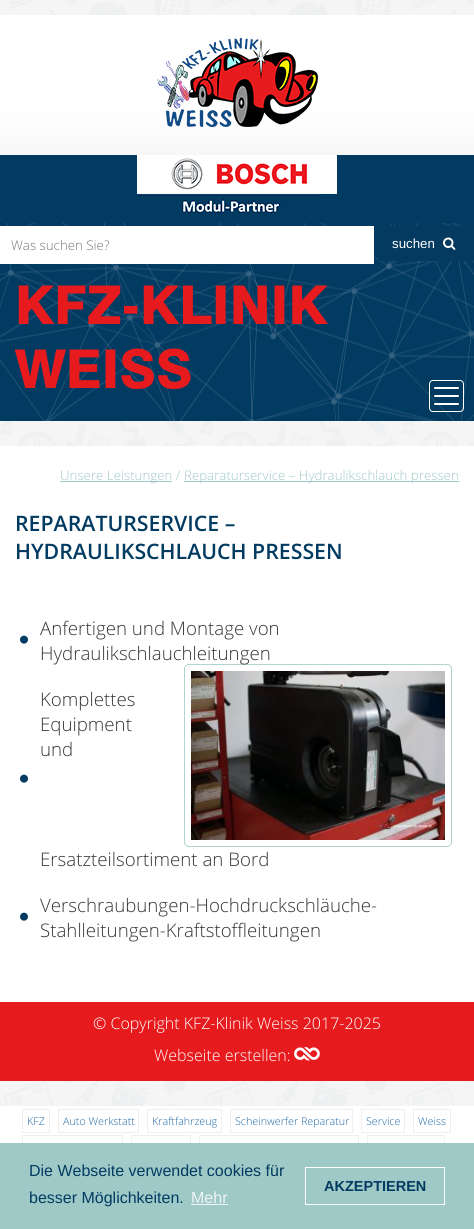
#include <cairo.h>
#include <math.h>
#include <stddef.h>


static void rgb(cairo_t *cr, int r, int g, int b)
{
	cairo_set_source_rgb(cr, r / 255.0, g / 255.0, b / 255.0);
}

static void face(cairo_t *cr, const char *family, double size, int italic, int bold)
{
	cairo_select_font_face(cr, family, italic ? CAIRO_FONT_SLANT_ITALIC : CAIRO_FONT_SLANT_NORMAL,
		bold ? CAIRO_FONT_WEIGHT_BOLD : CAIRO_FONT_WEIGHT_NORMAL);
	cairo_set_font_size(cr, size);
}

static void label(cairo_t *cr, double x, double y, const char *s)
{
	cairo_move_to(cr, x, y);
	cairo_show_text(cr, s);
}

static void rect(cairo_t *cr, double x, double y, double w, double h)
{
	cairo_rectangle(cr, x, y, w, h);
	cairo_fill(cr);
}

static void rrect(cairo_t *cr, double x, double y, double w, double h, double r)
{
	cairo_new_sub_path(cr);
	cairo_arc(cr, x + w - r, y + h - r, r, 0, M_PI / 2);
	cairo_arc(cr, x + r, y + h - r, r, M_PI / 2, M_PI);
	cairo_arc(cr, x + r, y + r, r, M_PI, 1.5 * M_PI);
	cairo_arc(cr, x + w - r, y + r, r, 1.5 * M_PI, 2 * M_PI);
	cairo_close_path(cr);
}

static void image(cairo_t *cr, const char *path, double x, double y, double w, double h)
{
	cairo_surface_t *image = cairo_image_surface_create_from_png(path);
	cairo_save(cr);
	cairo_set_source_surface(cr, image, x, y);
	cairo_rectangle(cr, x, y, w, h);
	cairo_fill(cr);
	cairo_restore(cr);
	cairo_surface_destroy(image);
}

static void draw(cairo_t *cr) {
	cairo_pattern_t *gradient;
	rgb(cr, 255, 255, 255);
	cairo_paint(cr);
	image(cr, "image0.png", 0, 0, 474, 1106);
	rgb(cr, 2, 59, 97);
	rect(cr, 0, 155, 474, 68);
	gradient = cairo_pattern_create_linear(237, 15, 237, 155);
	cairo_pattern_add_color_stop_rgba(gradient, 0.67, 1, 1, 1, 1);
	cairo_pattern_add_color_stop_rgba(gradient, 1, 0.969, 0.969, 0.969, 1);
	cairo_set_source(cr, gradient);
	cairo_pattern_destroy(gradient);
	rect(cr, 0, 15, 474, 140);
	image(cr, "image1.png", 157, 38, 161, 89);
	image(cr, "image2.png", 137, 155, 200, 58);
	image(cr, "image3.png", 0, 223, 474, 198);
	rgb(cr, 255, 255, 255);
	rect(cr, 0, 226, 374, 38);
	face(cr, "Open Sans Light", 13.3, 0, 0);
	rgb(cr, 117, 117, 117);
	label(cr, 11, 250, "Was suchen Sie?");
	rgb(cr, 4, 58, 96);
	rect(cr, 379, 226, 95, 35);
	face(cr, "Liberation Sans", 13.3, 0, 0);
	rgb(cr, 255, 255, 255);
	label(cr, 392, 248, "suchen");
	image(cr, "image4.png", 443, 237, 13, 13);
	face(cr, "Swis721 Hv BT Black", 53.5, 0, 0);
	rgb(cr, 231, 27, 29);
	label(cr, 15, 324, "KFZ-KLINIK");
	label(cr, 15, 388, "WEISS");
	rrect(cr, 429.5, 380.5, 34, 31, 3.5);
	rgb(cr, 255, 255, 255);
	cairo_set_line_width(cr, 1);
	cairo_stroke(cr);
	rrect(cr, 434, 387, 25, 2, 1);
	cairo_fill(cr);
	rrect(cr, 434, 395, 25, 2, 1);
	cairo_fill(cr);
	rrect(cr, 434, 403, 25, 2, 1);
	cairo_fill(cr);
	rect(cr, 0, 446, 474, 556);
	rgb(cr, 159, 201, 198);
	rect(cr, 60, 481, 112, 1);
	face(cr, "Open Sans Light", 13.3, 0, 0);
	label(cr, 60, 480, "Unsere Leistungen /");
	rect(cr, 184, 481, 275, 1);
	label(cr, 184, 480, "Reparaturservice – Hydraulikschlauch pressen");
	face(cr, "Open Sans SemiBold", 21.3, 0, 0);
	rgb(cr, 2, 59, 97);
	label(cr, 15, 531, "REPARATURSERVICE –");
	label(cr, 15, 559, "HYDRAULIKSCHLAUCH PRESSEN");
	image(cr, "image5.png", 20, 635, 8, 9);
	face(cr, "Open Sans Light", 18.7, 0, 0);
	rgb(cr, 54, 54, 54);
	label(cr, 40, 635, "Anfertigen und Montage von");
	image(cr, "image6.png", 191, 671, 254, 169);
	rrect(cr, 184.5, 664.5, 267, 182, 4.5);
	rgb(cr, 178, 212, 209);
	cairo_stroke(cr);
	rgb(cr, 54, 54, 54);
	label(cr, 40, 660, "Hydraulikschlauchleitungen");
	label(cr, 40, 706, "Komplettes");
	label(cr, 40, 731, "Equipment");
	label(cr, 40, 756, "und");
	image(cr, "image5.png", 20, 774, 8, 9);
	label(cr, 40, 866, "Ersatzteilsortiment an Bord");
	image(cr, "image5.png", 20, 912, 8, 9);
	label(cr, 40, 912, "Verschraubungen-Hochdruckschläuche-");
	label(cr, 40, 937, "Stahlleitungen-Kraftstoffleitungen");
	rgb(cr, 231, 27, 29);
	rect(cr, 0, 1002, 474, 79);
	face(cr, "Open Sans Light", 16, 0, 0);
	rgb(cr, 255, 255, 255);
	label(cr, 93, 1029, "© Copyright KFZ-Klinik Weiss 2017-2025");
	label(cr, 154, 1061, "Webseite erstellen:");
	image(cr, "image7.png", 294, 1047, 26, 14);
	cairo_rectangle(cr, 22.5, 1109.5, 27, 23);
	rgb(cr, 239, 239, 239);
	cairo_stroke(cr);
	face(cr, "Open Sans Light", 10.75, 0, 0);
	rgb(cr, 30, 104, 164);
	label(cr, 27, 1125, "KFZ");
	cairo_rectangle(cr, 58.5, 1109.5, 80, 23);
	rgb(cr, 239, 239, 239);
	cairo_stroke(cr);
	rgb(cr, 30, 104, 164);
	label(cr, 63, 1125, "Auto Werkstatt");
	cairo_rectangle(cr, 147.5, 1109.5, 74, 23);
	rgb(cr, 239, 239, 239);
	cairo_stroke(cr);
	rgb(cr, 30, 104, 164);
	label(cr, 152, 1125, "Kraftfahrzeug");
	cairo_rectangle(cr, 230.5, 1109.5, 122, 23);
	rgb(cr, 239, 239, 239);
	cairo_stroke(cr);
	rgb(cr, 30, 104, 164);
	label(cr, 235, 1125, "Scheinwerfer Reparatur");
	cairo_rectangle(cr, 361.5, 1109.5, 43, 23);
	rgb(cr, 239, 239, 239);
	cairo_stroke(cr);
	rgb(cr, 30, 104, 164);
	label(cr, 366, 1125, "Service");
	cairo_rectangle(cr, 413.5, 1109.5, 37, 23);
	rgb(cr, 239, 239, 239);
	cairo_stroke(cr);
	rgb(cr, 30, 104, 164);
	label(cr, 418, 1125, "Weiss");
	cairo_rectangle(cr, 22.5, 1135.5, 100, 23);
	rgb(cr, 239, 239, 239);
	cairo_stroke(cr);
	cairo_rectangle(cr, 131.5, 1135.5, 59, 23);
	cairo_stroke(cr);
	cairo_rectangle(cr, 199.5, 1135.5, 159, 23);
	cairo_stroke(cr);
	cairo_rectangle(cr, 367.5, 1135.5, 77, 23);
	cairo_stroke(cr);
	rgb(cr, 159, 201, 198);
	rect(cr, 0, 1143, 474, 86);
	face(cr, "Liberation Sans", 16, 0, 0);
	rgb(cr, 2, 59, 97);
	label(cr, 29, 1176, "Die Webseite verwendet cookies für");
	label(cr, 29, 1203, "besser Möglichkeiten.");
	rgb(cr, 236, 244, 244);
	label(cr, 191, 1203, "Mehr");
	rect(cr, 191, 1204, 37, 1);
	cairo_rectangle(cr, 305.5, 1167.5, 139, 37);
	rgb(cr, 255, 255, 255);
	cairo_stroke(cr);
	face(cr, "Liberation Sans", 14.5, 0, 1);
	rgb(cr, 2, 59, 97);
	label(cr, 324, 1191, "AKZEPTIEREN");
}

int main(void) {
	cairo_surface_t *surface = cairo_image_surface_create(CAIRO_FORMAT_RGB24, 474, 1229);
	cairo_t *cr = cairo_create(surface);
	cairo_font_options_t *options = cairo_font_options_create();
	cairo_font_options_set_hint_metrics(options, CAIRO_HINT_METRICS_OFF);
	cairo_font_options_set_hint_style(options, CAIRO_HINT_STYLE_NONE);
	cairo_set_font_options(cr, options);
	cairo_set_miter_limit(cr, 4);
	draw(cr);
	cairo_surface_write_to_png(surface, "render.png");
	cairo_font_options_destroy(options);
	cairo_destroy(cr);
	cairo_surface_destroy(surface);
	return 0;
}
